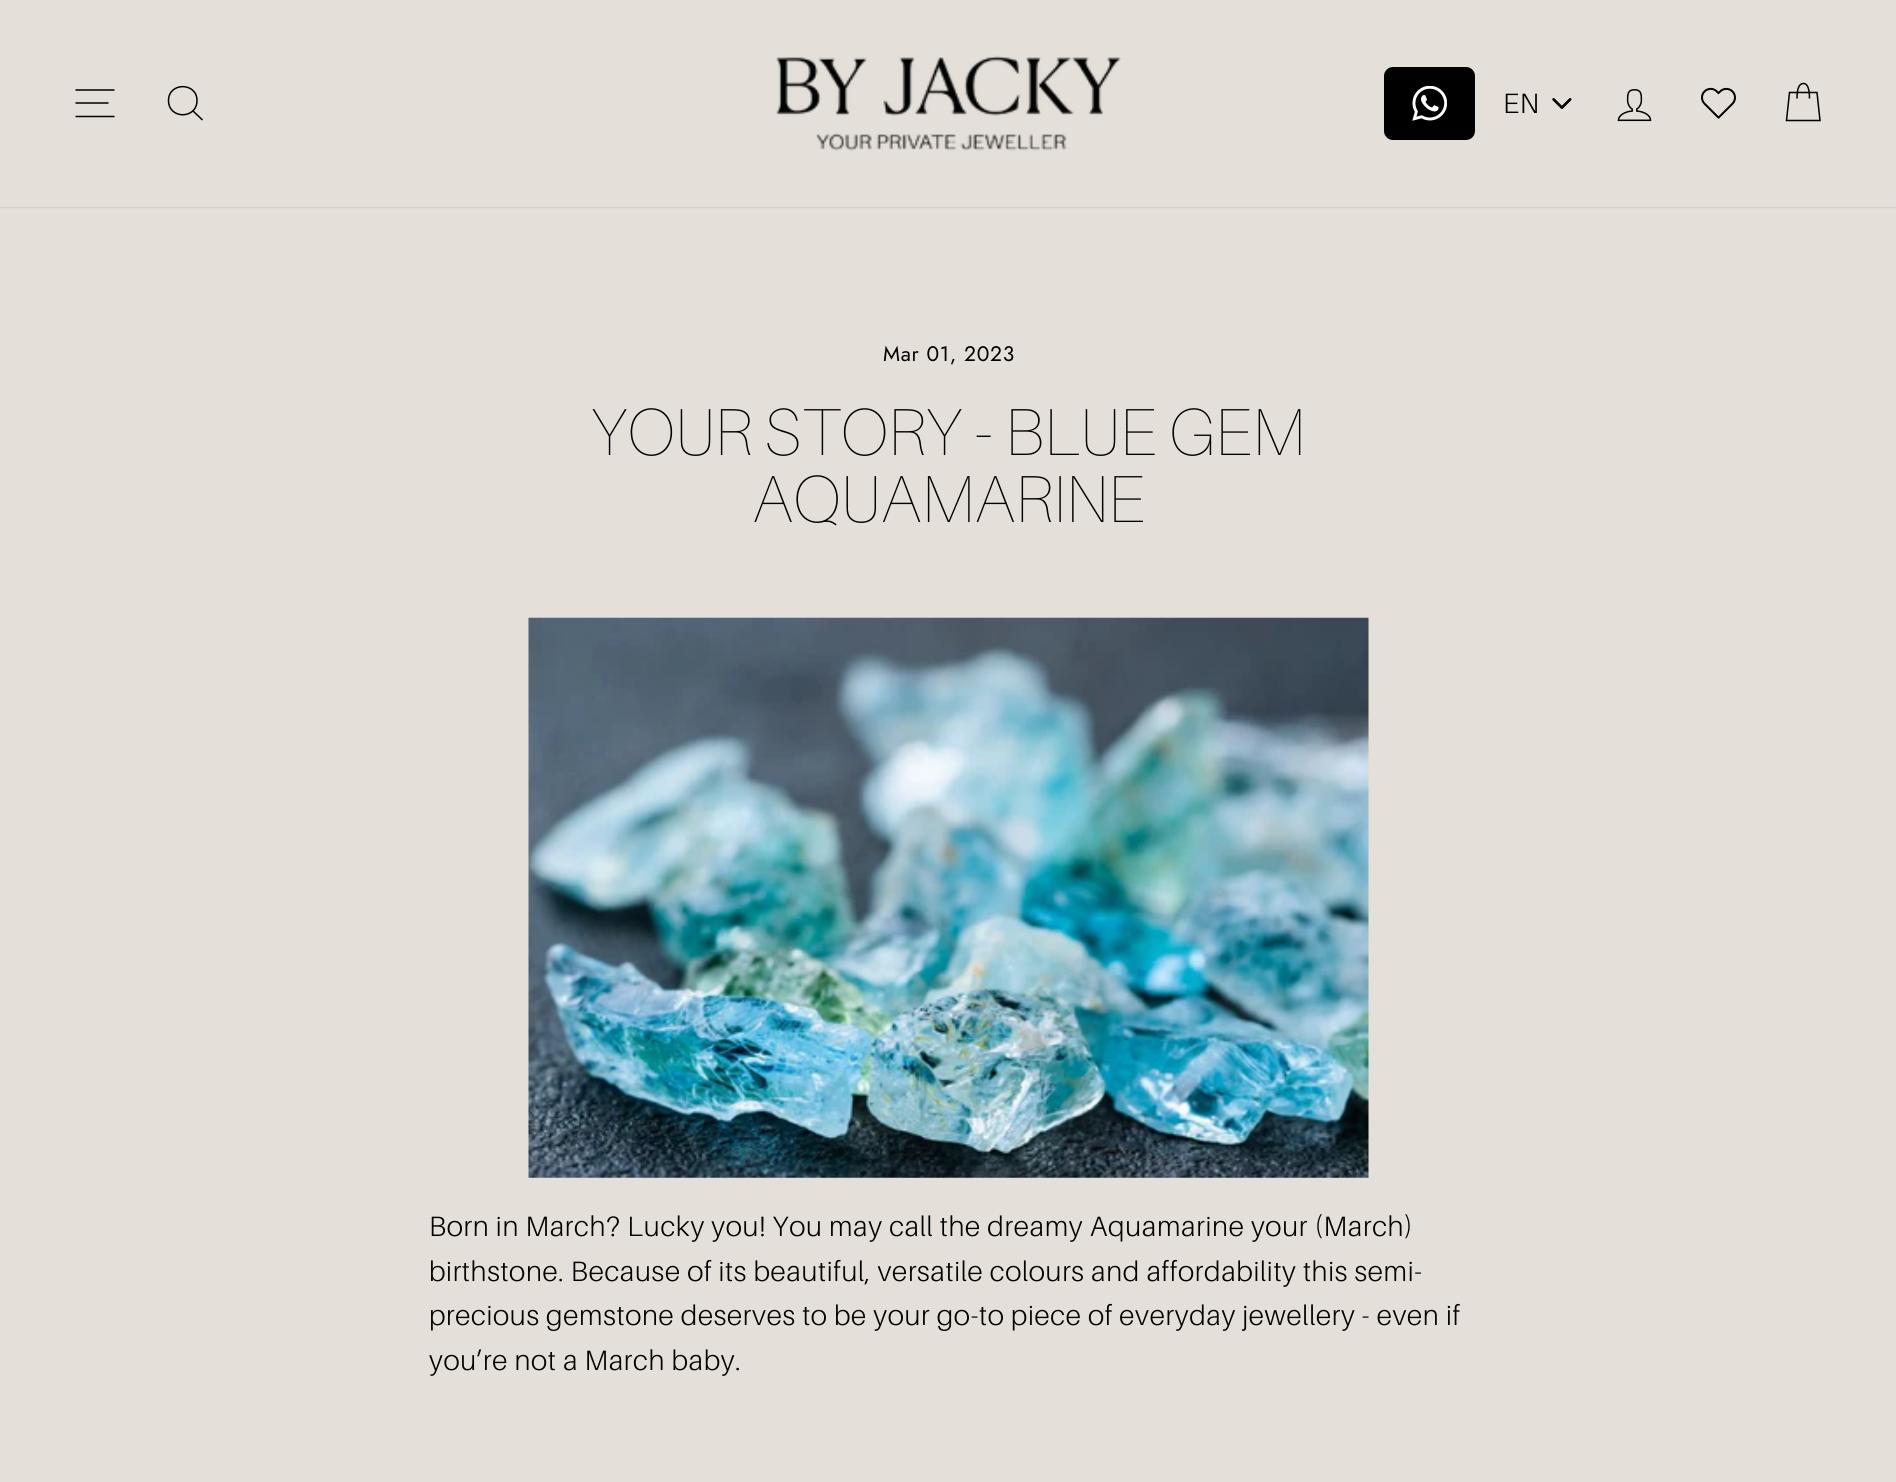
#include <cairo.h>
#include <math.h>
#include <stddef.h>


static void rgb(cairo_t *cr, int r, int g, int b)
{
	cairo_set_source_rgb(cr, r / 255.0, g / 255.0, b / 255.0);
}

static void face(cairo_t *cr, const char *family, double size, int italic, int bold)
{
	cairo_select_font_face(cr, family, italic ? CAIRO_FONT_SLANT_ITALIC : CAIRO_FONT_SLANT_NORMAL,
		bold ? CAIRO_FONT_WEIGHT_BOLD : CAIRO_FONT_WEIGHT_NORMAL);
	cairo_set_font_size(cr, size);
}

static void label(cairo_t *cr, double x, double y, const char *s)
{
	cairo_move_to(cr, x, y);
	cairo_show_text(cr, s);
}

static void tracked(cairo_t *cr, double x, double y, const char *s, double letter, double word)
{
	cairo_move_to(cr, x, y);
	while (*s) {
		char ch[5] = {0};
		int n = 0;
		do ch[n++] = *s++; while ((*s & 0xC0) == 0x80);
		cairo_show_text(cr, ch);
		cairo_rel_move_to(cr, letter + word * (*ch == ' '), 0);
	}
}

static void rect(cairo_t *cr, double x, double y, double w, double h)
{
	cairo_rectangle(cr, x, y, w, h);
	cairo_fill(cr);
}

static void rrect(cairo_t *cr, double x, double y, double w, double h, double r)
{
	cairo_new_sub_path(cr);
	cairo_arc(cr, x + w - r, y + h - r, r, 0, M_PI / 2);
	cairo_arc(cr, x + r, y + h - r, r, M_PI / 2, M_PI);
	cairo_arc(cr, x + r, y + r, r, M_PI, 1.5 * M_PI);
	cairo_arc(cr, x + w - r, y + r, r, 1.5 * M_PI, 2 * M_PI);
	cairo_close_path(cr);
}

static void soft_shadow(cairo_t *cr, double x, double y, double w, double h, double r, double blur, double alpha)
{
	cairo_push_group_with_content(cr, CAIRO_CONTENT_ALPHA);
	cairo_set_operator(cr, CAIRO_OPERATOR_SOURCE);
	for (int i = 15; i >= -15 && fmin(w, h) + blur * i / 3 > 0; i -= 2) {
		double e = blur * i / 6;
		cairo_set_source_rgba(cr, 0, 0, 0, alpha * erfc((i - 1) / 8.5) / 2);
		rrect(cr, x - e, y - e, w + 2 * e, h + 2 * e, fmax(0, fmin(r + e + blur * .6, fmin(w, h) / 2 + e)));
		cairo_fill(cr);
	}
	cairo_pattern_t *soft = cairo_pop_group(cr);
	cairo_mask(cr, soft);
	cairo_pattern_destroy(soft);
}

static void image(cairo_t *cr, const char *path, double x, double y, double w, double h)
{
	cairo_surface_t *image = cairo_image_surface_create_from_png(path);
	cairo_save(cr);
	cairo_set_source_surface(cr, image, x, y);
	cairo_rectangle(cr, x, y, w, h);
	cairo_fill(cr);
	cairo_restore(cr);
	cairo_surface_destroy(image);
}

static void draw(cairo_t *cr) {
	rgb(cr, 228, 223, 217);
	cairo_paint(cr);
	rgb(cr, 0, 0, 0);
	soft_shadow(cr, 0, 0, 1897, 207, 0, 1, 0.2);
	rgb(cr, 228, 223, 217);
	rect(cr, 0, 0, 1896, 207);
	cairo_new_path(cr);
	cairo_move_to(cr, 75.5, 90);
	cairo_line_to(cr, 114.5, 90);
	cairo_move_to(cr, 75.5, 103);
	cairo_line_to(cr, 108.5, 103);
	cairo_move_to(cr, 75.5, 116.5);
	cairo_line_to(cr, 114.5, 116.5);
	rgb(cr, 0, 0, 0);
	cairo_set_line_width(cr, 1.5);
	cairo_stroke(cr);
	cairo_new_path(cr);
	cairo_move_to(cr, 197, 100.5);
	cairo_curve_to(cr, 197, 119.5, 168.5, 119.5, 168.5, 100.5);
	cairo_curve_to(cr, 168.5, 82, 197, 82, 197, 100.5);
	cairo_close_path(cr);
	cairo_move_to(cr, 202.5, 120);
	cairo_line_to(cr, 193, 111);
	cairo_stroke(cr);
	image(cr, "image0.png", 776, 55, 345, 96);
	rrect(cr, 1384, 67, 91, 73, 9);
	cairo_fill(cr);
	image(cr, "image1.png", 1412, 86, 35, 35);
	image(cr, "image2.png", 1552, 98, 20, 11);
	face(cr, "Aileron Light", 28, 0, 0);
	tracked(cr, 1503, 113, "EN", 0.7, 0);
	image(cr, "image3.png", 1617, 89, 35, 33);
	image(cr, "image4.png", 1701, 87, 35, 32);
	cairo_new_path(cr);
	cairo_move_to(cr, 1797, 98.5);
	cairo_curve_to(cr, 1797, 86.5, 1800, 83.5, 1803.5, 83.5);
	cairo_curve_to(cr, 1806.5, 83.5, 1809.5, 86.5, 1809.5, 98.5);
	cairo_move_to(cr, 1789.5, 92.5);
	cairo_line_to(cr, 1817, 92.5);
	cairo_line_to(cr, 1820, 120.5);
	cairo_line_to(cr, 1786.5, 120.5);
	cairo_close_path(cr);
	cairo_stroke(cr);
	face(cr, "Jost", 21, 0, 0);
	tracked(cr, 883, 361, "Mar 01, 2023", 0.7, 0);
	face(cr, "Aileron ExtraLight", 66.5, 0, 0);
	label(cr, 591, 455, "YOUR STORY - BLUE GEM");
	label(cr, 752, 522, "AQUAMARINE");
	image(cr, "image5.png", 528, 617, 841, 561);
	face(cr, "Aileron Light", 28, 0, 0);
	tracked(cr, 429, 1236, "Born in March? Lucky you! You may call the dreamy Aquamarine your (March)", 0.7, 0);
	tracked(cr, 429, 1281, "birthstone. Because of its beautiful, versatile colours and affordability this semi-", 0.7, 0);
	tracked(cr, 429, 1325, "precious gemstone deserves to be your go-to piece of everyday jewellery - even if", 0.7, 0);
	tracked(cr, 429, 1370, "you’re not a March baby.", 0.7, 0);
}

int main(void) {
	cairo_surface_t *surface = cairo_image_surface_create(CAIRO_FORMAT_RGB24, 1896, 1482);
	cairo_t *cr = cairo_create(surface);
	cairo_font_options_t *options = cairo_font_options_create();
	cairo_font_options_set_hint_metrics(options, CAIRO_HINT_METRICS_OFF);
	cairo_font_options_set_hint_style(options, CAIRO_HINT_STYLE_NONE);
	cairo_set_font_options(cr, options);
	cairo_set_miter_limit(cr, 4);
	draw(cr);
	cairo_surface_write_to_png(surface, "render.png");
	cairo_font_options_destroy(options);
	cairo_destroy(cr);
	cairo_surface_destroy(surface);
	return 0;
}
